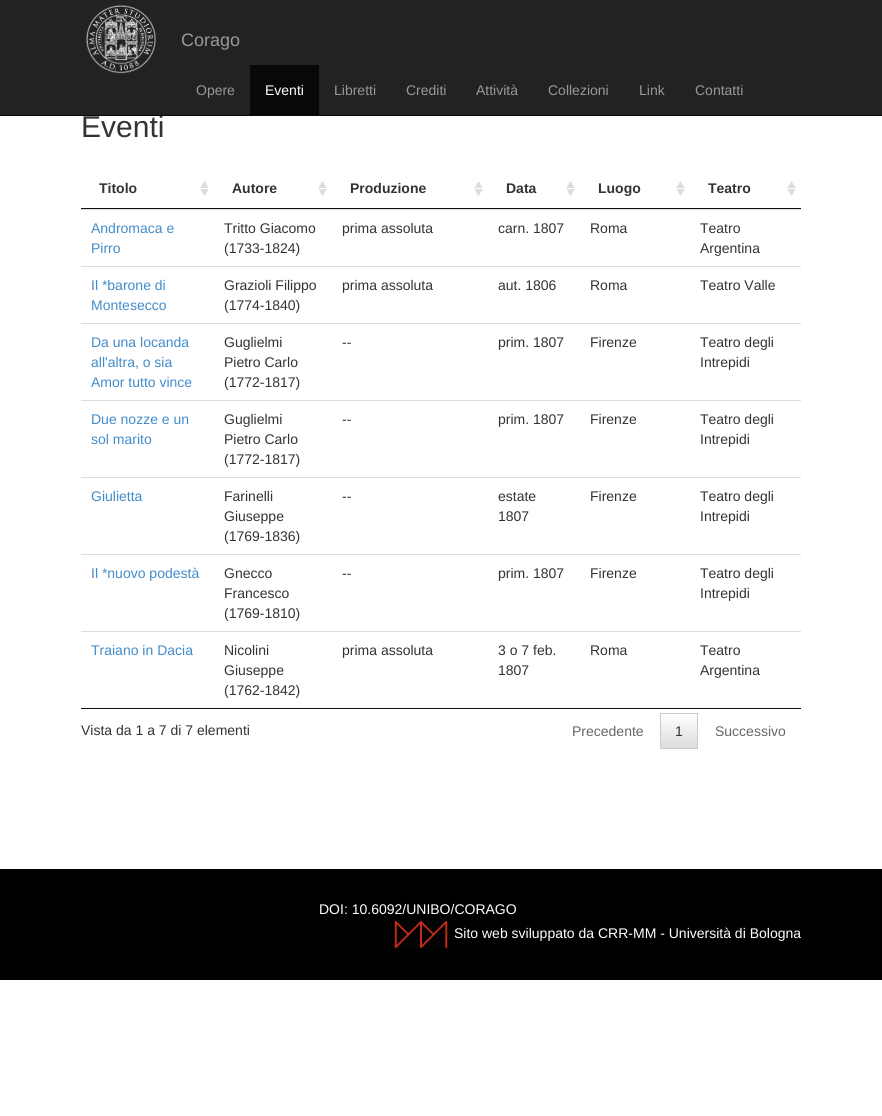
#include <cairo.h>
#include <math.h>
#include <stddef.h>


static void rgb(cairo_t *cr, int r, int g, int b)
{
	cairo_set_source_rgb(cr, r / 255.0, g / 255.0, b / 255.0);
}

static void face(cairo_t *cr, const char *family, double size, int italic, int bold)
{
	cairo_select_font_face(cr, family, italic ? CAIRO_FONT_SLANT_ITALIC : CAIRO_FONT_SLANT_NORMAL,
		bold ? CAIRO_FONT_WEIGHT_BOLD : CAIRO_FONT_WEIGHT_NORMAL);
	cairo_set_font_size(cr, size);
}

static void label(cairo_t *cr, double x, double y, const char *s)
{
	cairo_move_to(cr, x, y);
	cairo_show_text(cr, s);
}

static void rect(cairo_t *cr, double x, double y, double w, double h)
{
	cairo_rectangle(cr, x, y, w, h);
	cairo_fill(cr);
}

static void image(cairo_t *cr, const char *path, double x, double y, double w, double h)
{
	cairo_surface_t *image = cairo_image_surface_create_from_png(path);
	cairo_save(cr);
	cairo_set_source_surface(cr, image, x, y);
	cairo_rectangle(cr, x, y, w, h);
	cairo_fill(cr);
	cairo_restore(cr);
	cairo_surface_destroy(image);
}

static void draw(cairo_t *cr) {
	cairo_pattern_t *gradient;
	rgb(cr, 255, 255, 255);
	cairo_paint(cr);
	rgb(cr, 34, 34, 34);
	rect(cr, 0, 0, 882, 115);
	face(cr, "Liberation Sans", 30, 0, 0);
	rgb(cr, 51, 51, 51);
	label(cr, 81, 137, "Eventi");
	rgb(cr, 8, 8, 8);
	rect(cr, 0, 115, 882, 1);
	image(cr, "image0.png", 86, 5, 70, 69);
	face(cr, "Liberation Sans", 18, 0, 0);
	rgb(cr, 153, 153, 153);
	label(cr, 181, 46, "Corago");
	face(cr, "Liberation Sans", 14, 0, 0);
	label(cr, 196, 95, "Opere");
	rgb(cr, 8, 8, 8);
	rect(cr, 250, 65, 69, 50);
	rgb(cr, 255, 255, 255);
	label(cr, 265, 95, "Eventi");
	rgb(cr, 153, 153, 153);
	label(cr, 334, 95, "Libretti");
	label(cr, 406, 95, "Crediti");
	label(cr, 476, 95, "Attività");
	label(cr, 548, 95, "Collezioni");
	label(cr, 639, 95, "Link");
	label(cr, 695, 95, "Contatti");
	rgb(cr, 17, 17, 17);
	rect(cr, 81, 708, 720, 1);
	image(cr, "image1.png", 200, 181, 9, 15);
	rect(cr, 81, 208, 720, 1);
	face(cr, "Liberation Sans", 14, 0, 1);
	rgb(cr, 51, 51, 51);
	label(cr, 99, 193, "Titolo");
	image(cr, "image1.png", 318, 181, 9, 15);
	label(cr, 232, 193, "Autore");
	image(cr, "image1.png", 474, 181, 9, 15);
	label(cr, 350, 193, "Produzione");
	image(cr, "image1.png", 566, 181, 9, 15);
	label(cr, 506, 193, "Data");
	image(cr, "image1.png", 676, 181, 9, 15);
	label(cr, 598, 193, "Luogo");
	image(cr, "image1.png", 787, 181, 9, 15);
	label(cr, 708, 193, "Teatro");
	rgb(cr, 221, 221, 221);
	rect(cr, 81, 209, 720, 1);
	face(cr, "Liberation Sans", 14, 0, 0);
	rgb(cr, 66, 139, 202);
	label(cr, 91, 233, "Andromaca e");
	label(cr, 91, 253, "Pirro");
	rgb(cr, 51, 51, 51);
	label(cr, 224, 233, "Tritto Giacomo");
	label(cr, 224, 253, "(1733-1824)");
	label(cr, 342, 233, "prima assoluta");
	label(cr, 498, 233, "carn. 1807");
	label(cr, 590, 233, "Roma");
	label(cr, 700, 233, "Teatro");
	label(cr, 700, 253, "Argentina");
	rgb(cr, 221, 221, 221);
	rect(cr, 81, 266, 720, 1);
	rgb(cr, 66, 139, 202);
	label(cr, 91, 290, "Il *barone di");
	label(cr, 91, 310, "Montesecco");
	rgb(cr, 51, 51, 51);
	label(cr, 224, 290, "Grazioli Filippo");
	label(cr, 224, 310, "(1774-1840)");
	label(cr, 342, 290, "prima assoluta");
	label(cr, 498, 290, "aut. 1806");
	label(cr, 590, 290, "Roma");
	label(cr, 700, 290, "Teatro Valle");
	rgb(cr, 221, 221, 221);
	rect(cr, 81, 323, 720, 1);
	rgb(cr, 66, 139, 202);
	label(cr, 91, 347, "Da una locanda");
	label(cr, 91, 367, "all'altra, o sia");
	label(cr, 91, 387, "Amor tutto vince");
	rgb(cr, 51, 51, 51);
	label(cr, 224, 347, "Guglielmi");
	label(cr, 224, 367, "Pietro Carlo");
	label(cr, 224, 387, "(1772-1817)");
	label(cr, 342, 347, "--");
	label(cr, 498, 347, "prim. 1807");
	label(cr, 590, 347, "Firenze");
	label(cr, 700, 347, "Teatro degli");
	label(cr, 700, 367, "Intrepidi");
	rgb(cr, 221, 221, 221);
	rect(cr, 81, 400, 720, 1);
	rgb(cr, 66, 139, 202);
	label(cr, 91, 424, "Due nozze e un");
	label(cr, 91, 444, "sol marito");
	rgb(cr, 51, 51, 51);
	label(cr, 224, 424, "Guglielmi");
	label(cr, 224, 444, "Pietro Carlo");
	label(cr, 224, 464, "(1772-1817)");
	label(cr, 342, 424, "--");
	label(cr, 498, 424, "prim. 1807");
	label(cr, 590, 424, "Firenze");
	label(cr, 700, 424, "Teatro degli");
	label(cr, 700, 444, "Intrepidi");
	rgb(cr, 221, 221, 221);
	rect(cr, 81, 477, 720, 1);
	rgb(cr, 66, 139, 202);
	label(cr, 91, 501, "Giulietta");
	rgb(cr, 51, 51, 51);
	label(cr, 224, 501, "Farinelli");
	label(cr, 224, 521, "Giuseppe");
	label(cr, 224, 541, "(1769-1836)");
	label(cr, 342, 501, "--");
	label(cr, 498, 501, "estate");
	label(cr, 498, 521, "1807");
	label(cr, 590, 501, "Firenze");
	label(cr, 700, 501, "Teatro degli");
	label(cr, 700, 521, "Intrepidi");
	rgb(cr, 221, 221, 221);
	rect(cr, 81, 554, 720, 1);
	rgb(cr, 66, 139, 202);
	label(cr, 91, 578, "Il *nuovo podestà");
	rgb(cr, 51, 51, 51);
	label(cr, 224, 578, "Gnecco");
	label(cr, 224, 598, "Francesco");
	label(cr, 224, 618, "(1769-1810)");
	label(cr, 342, 578, "--");
	label(cr, 498, 578, "prim. 1807");
	label(cr, 590, 578, "Firenze");
	label(cr, 700, 578, "Teatro degli");
	label(cr, 700, 598, "Intrepidi");
	rgb(cr, 221, 221, 221);
	rect(cr, 81, 631, 720, 1);
	rgb(cr, 66, 139, 202);
	label(cr, 91, 655, "Traiano in Dacia");
	rgb(cr, 51, 51, 51);
	label(cr, 224, 655, "Nicolini");
	label(cr, 224, 675, "Giuseppe");
	label(cr, 224, 695, "(1762-1842)");
	label(cr, 342, 655, "prima assoluta");
	label(cr, 498, 655, "3 o 7 feb.");
	label(cr, 498, 675, "1807");
	label(cr, 590, 655, "Roma");
	label(cr, 700, 655, "Teatro");
	label(cr, 700, 675, "Argentina");
	label(cr, 81, 735, "Vista da 1 a 7 di 7 elementi");
	rgb(cr, 102, 102, 102);
	label(cr, 572, 736, "Precedente");
	gradient = cairo_pattern_create_linear(679, 714, 679, 748);
	cairo_pattern_add_color_stop_rgba(gradient, 0, 1, 1, 1, 1);
	cairo_pattern_add_color_stop_rgba(gradient, 1, 0.863, 0.863, 0.863, 1);
	cairo_set_source(cr, gradient);
	cairo_pattern_destroy(gradient);
	rect(cr, 661, 716, 36, 32);
	cairo_rectangle(cr, 660.5, 713.5, 37, 35);
	rgb(cr, 202, 202, 202);
	cairo_set_line_width(cr, 1);
	cairo_stroke(cr);
	rgb(cr, 51, 51, 51);
	label(cr, 675, 736, "1");
	rgb(cr, 102, 102, 102);
	label(cr, 715, 736, "Successivo");
	rgb(cr, 0, 0, 0);
	rect(cr, 0, 869, 882, 111);
	rgb(cr, 255, 255, 255);
	label(cr, 319, 914, "DOI: 10.6092/UNIBO/CORAGO");
	image(cr, "image2.png", 394, 920, 54, 29);
	label(cr, 454, 938, "Sito web sviluppato da CRR-MM - Università di Bologna");
}

int main(void) {
	cairo_surface_t *surface = cairo_image_surface_create(CAIRO_FORMAT_RGB24, 882, 1116);
	cairo_t *cr = cairo_create(surface);
	cairo_font_options_t *options = cairo_font_options_create();
	cairo_font_options_set_hint_metrics(options, CAIRO_HINT_METRICS_OFF);
	cairo_font_options_set_hint_style(options, CAIRO_HINT_STYLE_NONE);
	cairo_set_font_options(cr, options);
	cairo_set_miter_limit(cr, 4);
	draw(cr);
	cairo_surface_write_to_png(surface, "render.png");
	cairo_font_options_destroy(options);
	cairo_destroy(cr);
	cairo_surface_destroy(surface);
	return 0;
}
